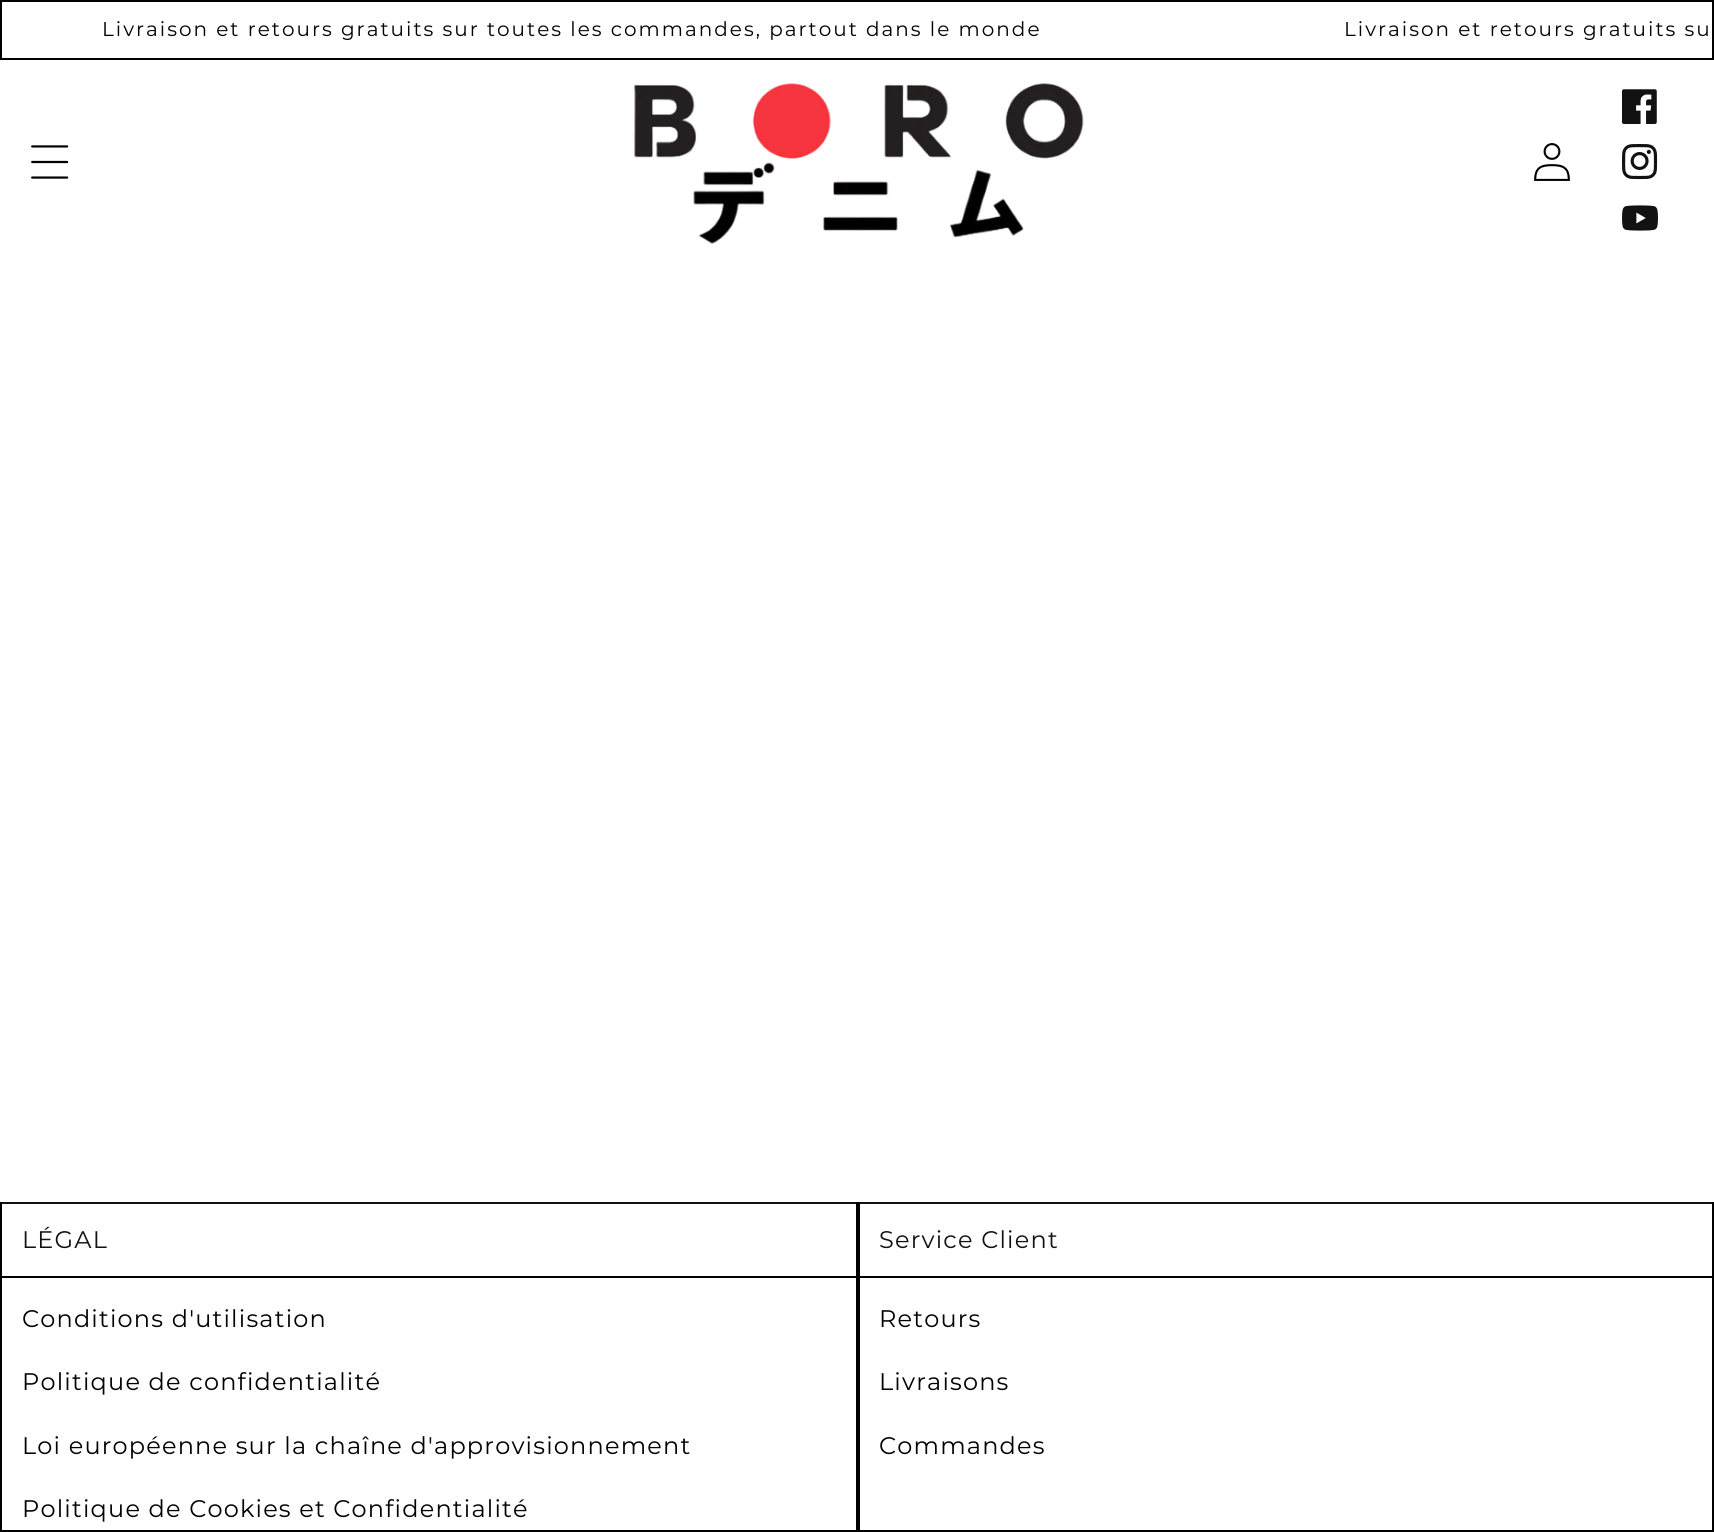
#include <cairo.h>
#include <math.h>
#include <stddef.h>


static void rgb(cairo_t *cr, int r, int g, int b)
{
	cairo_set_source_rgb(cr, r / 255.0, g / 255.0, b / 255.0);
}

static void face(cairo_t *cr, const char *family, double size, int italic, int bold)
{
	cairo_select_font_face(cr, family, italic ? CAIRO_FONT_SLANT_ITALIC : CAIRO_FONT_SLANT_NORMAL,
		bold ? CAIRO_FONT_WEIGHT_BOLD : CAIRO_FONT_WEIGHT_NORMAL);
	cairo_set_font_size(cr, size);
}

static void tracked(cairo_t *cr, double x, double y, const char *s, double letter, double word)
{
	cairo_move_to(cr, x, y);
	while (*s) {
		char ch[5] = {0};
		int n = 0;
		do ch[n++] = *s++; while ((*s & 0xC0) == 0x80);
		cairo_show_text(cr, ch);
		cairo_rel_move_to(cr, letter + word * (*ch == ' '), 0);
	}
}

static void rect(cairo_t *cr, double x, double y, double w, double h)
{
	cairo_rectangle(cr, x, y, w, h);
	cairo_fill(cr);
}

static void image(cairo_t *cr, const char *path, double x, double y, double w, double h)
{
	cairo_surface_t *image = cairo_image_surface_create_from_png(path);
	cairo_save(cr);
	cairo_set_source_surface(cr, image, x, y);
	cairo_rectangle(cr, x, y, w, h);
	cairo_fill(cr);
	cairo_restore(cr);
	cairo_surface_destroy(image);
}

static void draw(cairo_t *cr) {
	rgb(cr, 255, 255, 255);
	cairo_paint(cr);
	cairo_rectangle(cr, 1, 1, 1712, 58);
	rgb(cr, 0, 0, 0);
	cairo_stroke(cr);
	face(cr, "Montserrat", 20, 0, 0);
	tracked(cr, 102, 36, "Livraison et retours gratuits sur toutes les commandes, partout dans le monde", 2, 0);
	tracked(cr, 1344, 36, "Livraison et retours gratuits su", 2, 0);
	image(cr, "image0.png", 31, 145, 38, 34);
	image(cr, "image1.png", 633, 83, 451, 161);
	image(cr, "image2.png", 1534, 143, 36, 38);
	image(cr, "image3.png", 1622, 89, 35, 35);
	image(cr, "image4.png", 1622, 144, 36, 36);
	image(cr, "image5.png", 1622, 205, 36, 26);
	rgb(cr, 18, 18, 18);
	rect(cr, 0, 1202, 1714, 2);
	rgb(cr, 0, 0, 0);
	rect(cr, 856, 1202, 2, 330);
	rect(cr, 0, 1530, 858, 2);
	rect(cr, 0, 1202, 2, 330);
	rect(cr, 2, 1276, 854, 2);
	face(cr, "Montserrat", 24, 0, 0);
	rgb(cr, 18, 18, 18);
	tracked(cr, 22, 1248, "LÉGAL", 1.2, 0);
	rgb(cr, 0, 0, 0);
	tracked(cr, 22, 1327, "Conditions d'utilisation", 1.2, 0);
	tracked(cr, 22, 1390, "Politique de confidentialité", 1.2, 0);
	tracked(cr, 22, 1454, "Loi européenne sur la chaîne d'approvisionnement", 1.2, 0);
	tracked(cr, 22, 1517, "Politique de Cookies et Confidentialité", 1.2, 0);
	rect(cr, 1712, 1202, 2, 330);
	rect(cr, 858, 1530, 856, 2);
	rect(cr, 858, 1202, 2, 330);
	rect(cr, 860, 1276, 852, 2);
	rgb(cr, 18, 18, 18);
	tracked(cr, 879, 1248, "Service Client", 1.2, 0);
	rgb(cr, 0, 0, 0);
	tracked(cr, 879, 1327, "Retours", 1.2, 0);
	tracked(cr, 879, 1390, "Livraisons", 1.2, 0);
	tracked(cr, 879, 1454, "Commandes", 1.2, 0);
}

int main(void) {
	cairo_surface_t *surface = cairo_image_surface_create(CAIRO_FORMAT_RGB24, 1714, 1532);
	cairo_t *cr = cairo_create(surface);
	cairo_font_options_t *options = cairo_font_options_create();
	cairo_font_options_set_hint_metrics(options, CAIRO_HINT_METRICS_OFF);
	cairo_font_options_set_hint_style(options, CAIRO_HINT_STYLE_NONE);
	cairo_set_font_options(cr, options);
	cairo_set_miter_limit(cr, 4);
	draw(cr);
	cairo_surface_write_to_png(surface, "render.png");
	cairo_font_options_destroy(options);
	cairo_destroy(cr);
	cairo_surface_destroy(surface);
	return 0;
}
